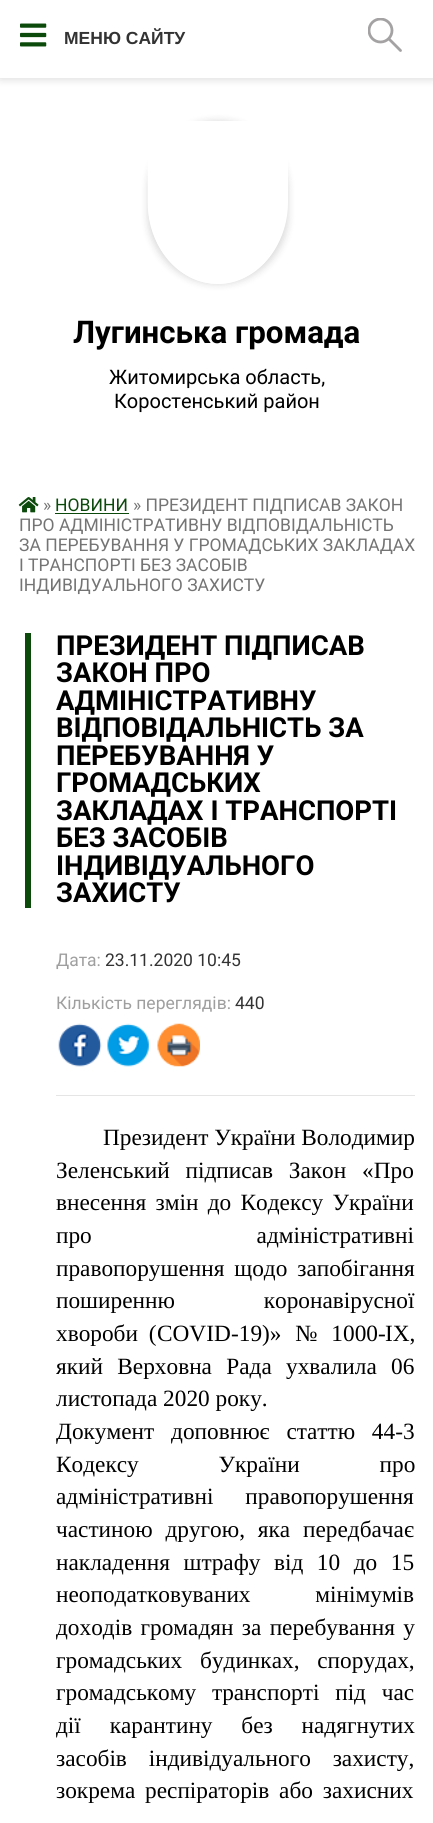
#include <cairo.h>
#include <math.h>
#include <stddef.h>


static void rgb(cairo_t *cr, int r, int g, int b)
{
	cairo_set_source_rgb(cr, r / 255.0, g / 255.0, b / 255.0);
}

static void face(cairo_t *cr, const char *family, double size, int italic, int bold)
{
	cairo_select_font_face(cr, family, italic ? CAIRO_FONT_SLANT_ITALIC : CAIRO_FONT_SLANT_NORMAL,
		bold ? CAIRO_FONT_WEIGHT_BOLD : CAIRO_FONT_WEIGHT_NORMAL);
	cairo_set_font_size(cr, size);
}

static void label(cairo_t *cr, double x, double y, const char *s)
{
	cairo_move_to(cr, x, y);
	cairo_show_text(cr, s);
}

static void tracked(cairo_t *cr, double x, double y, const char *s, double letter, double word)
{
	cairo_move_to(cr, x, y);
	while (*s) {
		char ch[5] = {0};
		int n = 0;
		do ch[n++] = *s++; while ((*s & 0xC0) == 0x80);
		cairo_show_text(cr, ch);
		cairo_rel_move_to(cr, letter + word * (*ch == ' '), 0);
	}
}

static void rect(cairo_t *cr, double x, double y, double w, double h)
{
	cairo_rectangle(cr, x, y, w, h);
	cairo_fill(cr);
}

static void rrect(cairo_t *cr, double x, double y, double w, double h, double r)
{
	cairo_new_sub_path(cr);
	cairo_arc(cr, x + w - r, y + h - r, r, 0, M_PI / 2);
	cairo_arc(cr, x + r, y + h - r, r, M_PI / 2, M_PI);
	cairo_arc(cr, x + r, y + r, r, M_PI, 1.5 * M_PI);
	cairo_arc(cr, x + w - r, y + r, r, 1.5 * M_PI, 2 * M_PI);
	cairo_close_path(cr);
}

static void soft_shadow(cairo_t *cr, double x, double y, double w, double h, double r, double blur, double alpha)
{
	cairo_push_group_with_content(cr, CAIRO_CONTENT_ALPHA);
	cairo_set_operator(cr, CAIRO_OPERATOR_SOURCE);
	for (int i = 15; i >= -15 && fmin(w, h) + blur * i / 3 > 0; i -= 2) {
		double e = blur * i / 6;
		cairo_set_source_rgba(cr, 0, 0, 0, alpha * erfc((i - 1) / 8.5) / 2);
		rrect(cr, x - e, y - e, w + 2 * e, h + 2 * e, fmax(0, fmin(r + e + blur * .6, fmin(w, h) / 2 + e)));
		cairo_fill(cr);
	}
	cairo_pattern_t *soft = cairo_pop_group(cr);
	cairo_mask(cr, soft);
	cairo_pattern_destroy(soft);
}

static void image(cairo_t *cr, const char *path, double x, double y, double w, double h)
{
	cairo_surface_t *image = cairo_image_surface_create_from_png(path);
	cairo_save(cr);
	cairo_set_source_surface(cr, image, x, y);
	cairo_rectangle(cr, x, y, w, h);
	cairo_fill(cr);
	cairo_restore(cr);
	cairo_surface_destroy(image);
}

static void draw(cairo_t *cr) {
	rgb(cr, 255, 255, 255);
	cairo_paint(cr);
	rgb(cr, 0, 0, 0);
	soft_shadow(cr, 0, 1, 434, 78, 0, 4.5, 0.15);
	rgb(cr, 255, 255, 255);
	rect(cr, 0, 0, 433, 78);
	image(cr, "image0.png", 20, 23, 27, 24);
	face(cr, "Liberation Sans", 17.5, 0, 1);
	rgb(cr, 51, 51, 51);
	label(cr, 64, 44, "МЕНЮ САЙТУ");
	cairo_save(cr);
	cairo_rectangle(cr, 368, 18, 35, 35);
	cairo_clip(cr);
	cairo_arc(cr, 380.5, 30.5, 11.5, 0, 2 * M_PI);
	rgb(cr, 164, 162, 162);
	cairo_set_line_width(cr, 2.8);
	cairo_stroke(cr);
	cairo_restore(cr);
	cairo_new_path(cr);
	cairo_move_to(cr, 389, 39);
	cairo_line_to(cr, 400.5, 50.5);
	rgb(cr, 164, 162, 162);
	cairo_set_line_width(cr, 2.8);
	cairo_set_line_cap(cr, CAIRO_LINE_CAP_ROUND);
	cairo_set_line_join(cr, CAIRO_LINE_JOIN_ROUND);
	cairo_stroke(cr);
	rgb(cr, 0, 0, 0);
	soft_shadow(cr, 148, 121, 140, 163, 70, 4, 0.15);
	rgb(cr, 255, 255, 255);
	cairo_new_path(cr);
	cairo_move_to(cr, 172, 121);
	cairo_line_to(cr, 262, 121);
	cairo_curve_to(cr, 276, 121, 288, 132, 288, 146);
	cairo_line_to(cr, 288, 202);
	cairo_curve_to(cr, 288, 247, 256, 284, 218, 284);
	cairo_curve_to(cr, 179, 284, 148, 247, 148, 202);
	cairo_line_to(cr, 148, 146);
	cairo_curve_to(cr, 148, 132, 159, 121, 172, 121);
	cairo_close_path(cr);
	cairo_fill(cr);
	cairo_new_path(cr);
	cairo_move_to(cr, 172.5, 122.5);
	cairo_line_to(cr, 262.5, 122.5);
	cairo_curve_to(cr, 275.5, 122.5, 286, 133, 286, 146);
	cairo_line_to(cr, 286, 202.5);
	cairo_curve_to(cr, 286, 246.5, 255.5, 282.5, 217.5, 282.5);
	cairo_curve_to(cr, 179.5, 282.5, 149, 246.5, 149, 202.5);
	cairo_line_to(cr, 149, 146);
	cairo_curve_to(cr, 149, 133, 159.5, 122.5, 172.5, 122.5);
	cairo_close_path(cr);
	cairo_set_line_width(cr, 2.5);
	cairo_set_line_cap(cr, CAIRO_LINE_CAP_BUTT);
	cairo_set_line_join(cr, CAIRO_LINE_JOIN_MITER);
	cairo_stroke(cr);
	face(cr, "Roboto", 31.25, 0, 1);
	rgb(cr, 0, 0, 0);
	label(cr, 73, 343, "Лугинська громада");
	face(cr, "Roboto", 20, 0, 0);
	label(cr, 109, 384, "Житомирська область,");
	label(cr, 114, 408, "Коростенський район");
	image(cr, "image1.png", 18, 497, 21, 16);
	face(cr, "Roboto", 17.5, 0, 0);
	rgb(cr, 116, 116, 116);
	label(cr, 43, 511, "»");
	rgb(cr, 12, 74, 12);
	label(cr, 55, 511, "НОВИНИ");
	rect(cr, 55, 513, 74, 1);
	rgb(cr, 116, 116, 116);
	label(cr, 133, 511, "» ПРЕЗИДЕНТ ПІДПИСАВ ЗАКОН");
	label(cr, 19, 531, "ПРО АДМІНІСТРАТИВНУ ВІДПОВІДАЛЬНІСТЬ");
	label(cr, 19, 551, "ЗА ПЕРЕБУВАННЯ У ГРОМАДСЬКИХ ЗАКЛАДАХ");
	label(cr, 19, 571, "І ТРАНСПОРТІ БЕЗ ЗАСОБІВ");
	label(cr, 19, 591, "ІНДИВІДУАЛЬНОГО ЗАХИСТУ");
	rgb(cr, 12, 74, 12);
	rect(cr, 25, 633, 6, 275);
	face(cr, "Roboto", 27.5, 0, 1);
	rgb(cr, 0, 0, 0);
	label(cr, 56, 655, "ПРЕЗИДЕНТ ПІДПИСАВ");
	label(cr, 56, 682, "ЗАКОН ПРО");
	label(cr, 56, 710, "АДМІНІСТРАТИВНУ");
	label(cr, 56, 737, "ВІДПОВІДАЛЬНІСТЬ ЗА");
	label(cr, 56, 765, "ПЕРЕБУВАННЯ У");
	label(cr, 56, 792, "ГРОМАДСЬКИХ");
	label(cr, 56, 820, "ЗАКЛАДАХ І ТРАНСПОРТІ");
	label(cr, 56, 847, "БЕЗ ЗАСОБІВ");
	label(cr, 56, 875, "ІНДИВІДУАЛЬНОГО");
	label(cr, 56, 902, "ЗАХИСТУ");
	face(cr, "Roboto", 17.5, 0, 0);
	rgb(cr, 159, 159, 159);
	label(cr, 56, 966, "Дата:");
	rgb(cr, 51, 51, 51);
	label(cr, 105, 966, "23.11.2020 10:45");
	rgb(cr, 159, 159, 159);
	label(cr, 56, 1009, "Кількість переглядів:");
	rgb(cr, 51, 51, 51);
	label(cr, 235, 1009, "440");
	image(cr, "image2.png", 58, 1023, 44, 44);
	image(cr, "image3.png", 107, 1023, 42, 44);
	image(cr, "image4.png", 157, 1023, 43, 44);
	rgb(cr, 229, 229, 229);
	rect(cr, 56, 1095, 359, 1);
	face(cr, "Liberation Serif", 23.3, 0, 0);
	rgb(cr, 0, 0, 0);
	label(cr, 103, 1145, "Президент України Володимир");
	tracked(cr, 56, 1178, "Зеленський підписав Закон «Про", 0, 10);
	tracked(cr, 56, 1210, "внесення змін до Кодексу України", 0, 3.5);
	tracked(cr, 56, 1243, "про адміністративні", 0, 159);
	tracked(cr, 56, 1276, "правопорушення щодо запобігання", 0, 4);
	tracked(cr, 56, 1308, "поширенню коронавірусної", 0, 83);
	tracked(cr, 56, 1341, "хвороби (", 0, 5);
	label(cr, 157, 1341, "COVID");
	tracked(cr, 231, 1341, "-19)» № 1000-", 0, 8);
	label(cr, 385, 1341, "IX,");
	tracked(cr, 56, 1374, "який Верховна Рада ухвалила 06", 0, 8.5);
	label(cr, 56, 1406, "листопада 2020 року.");
	tracked(cr, 56, 1439, "Документ доповнює статтю 44-3", 0, 11);
	tracked(cr, 56, 1472, "Кодексу України про", 0, 74);
	tracked(cr, 56, 1504, "адміністративні правопорушення", 0, 26);
	tracked(cr, 56, 1537, "частиною другою, яка передбачає", 0, 7);
	tracked(cr, 56, 1570, "накладення штрафу від 10 до 15", 0, 7.75);
	tracked(cr, 56, 1602, "неоподатковуваних мінімумів", 0, 59);
	tracked(cr, 56, 1635, "доходів громадян за перебування у", 0, 2.5);
	tracked(cr, 56, 1668, "громадських будинках, спорудах,", 0, 12);
	tracked(cr, 56, 1700, "громадському транспорті під час", 0, 10);
	tracked(cr, 56, 1733, "дії карантину без надягнутих", 0, 23);
	tracked(cr, 56, 1766, "засобів індивідуального захисту,", 0, 16);
	tracked(cr, 56, 1798, "зокрема респіраторів або захисних", 0, 4);
}

int main(void) {
	cairo_surface_t *surface = cairo_image_surface_create(CAIRO_FORMAT_RGB24, 433, 1823);
	cairo_t *cr = cairo_create(surface);
	cairo_font_options_t *options = cairo_font_options_create();
	cairo_font_options_set_hint_metrics(options, CAIRO_HINT_METRICS_OFF);
	cairo_font_options_set_hint_style(options, CAIRO_HINT_STYLE_NONE);
	cairo_set_font_options(cr, options);
	cairo_set_miter_limit(cr, 4);
	draw(cr);
	cairo_surface_write_to_png(surface, "render.png");
	cairo_font_options_destroy(options);
	cairo_destroy(cr);
	cairo_surface_destroy(surface);
	return 0;
}
